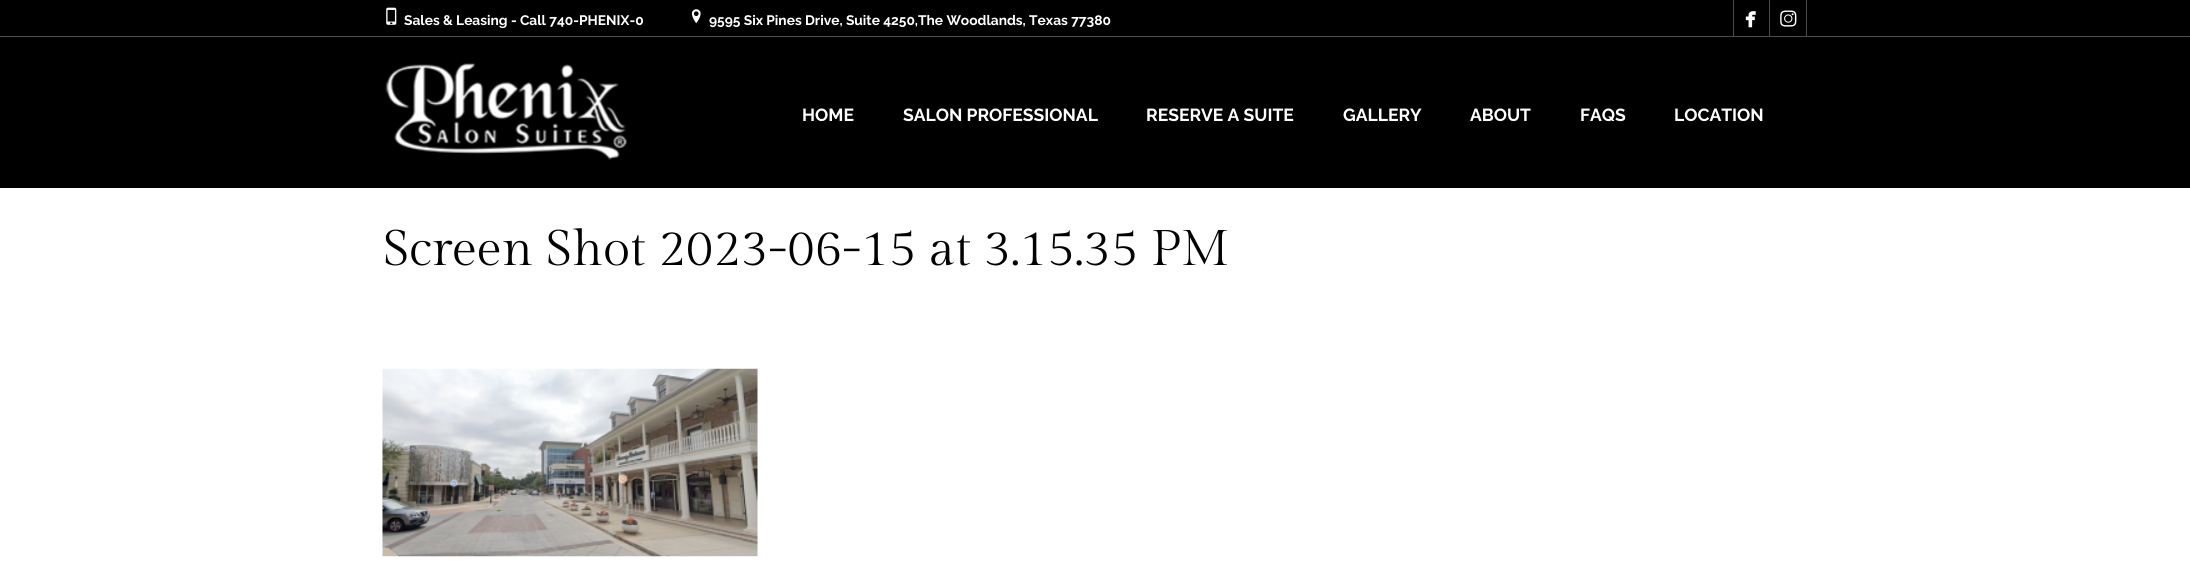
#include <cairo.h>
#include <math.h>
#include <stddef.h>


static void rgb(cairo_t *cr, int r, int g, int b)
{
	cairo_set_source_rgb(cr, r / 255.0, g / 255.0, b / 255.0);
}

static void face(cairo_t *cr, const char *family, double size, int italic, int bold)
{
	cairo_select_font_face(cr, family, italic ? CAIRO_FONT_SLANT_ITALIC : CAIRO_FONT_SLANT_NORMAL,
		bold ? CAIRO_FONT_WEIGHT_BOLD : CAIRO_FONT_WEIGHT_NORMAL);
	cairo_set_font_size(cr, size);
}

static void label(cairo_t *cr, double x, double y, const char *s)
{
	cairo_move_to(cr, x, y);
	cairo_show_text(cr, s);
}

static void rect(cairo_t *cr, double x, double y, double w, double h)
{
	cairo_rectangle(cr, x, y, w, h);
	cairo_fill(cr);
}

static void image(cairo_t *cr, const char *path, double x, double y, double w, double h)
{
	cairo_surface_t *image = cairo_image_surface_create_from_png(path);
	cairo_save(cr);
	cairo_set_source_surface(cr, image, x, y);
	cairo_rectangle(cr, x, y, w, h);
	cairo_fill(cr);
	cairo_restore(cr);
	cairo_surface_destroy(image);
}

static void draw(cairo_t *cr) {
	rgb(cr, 0, 0, 0);
	cairo_paint(cr);
	rgb(cr, 77, 77, 77);
	rect(cr, 0, 36, 2190, 1);
	image(cr, "image0.png", 386, 7, 11, 18);
	face(cr, "Raleway", 13.75, 0, 1);
	rgb(cr, 255, 255, 255);
	label(cr, 404, 25, "Sales & Leasing - Call 740-PHENIX-0");
	image(cr, "image1.png", 691, 9, 10, 15);
	label(cr, 709, 25, "9595 Six Pines Drive, Suite 4250,The Woodlands, Texas 77380");
	rgb(cr, 77, 77, 77);
	rect(cr, 1769, 0, 1, 36);
	rect(cr, 1733, 0, 1, 36);
	image(cr, "image2.png", 1745, 11, 11, 17);
	rect(cr, 1806, 0, 1, 36);
	image(cr, "image3.png", 1780, 10, 17, 17);
	image(cr, "image4.png", 385, 63, 242, 97);
	face(cr, "Raleway", 17.5, 0, 1);
	rgb(cr, 255, 255, 255);
	label(cr, 802, 121, "HOME");
	label(cr, 903, 121, "SALON PROFESSIONAL");
	label(cr, 1146, 121, "RESERVE A SUITE");
	label(cr, 1343, 121, "GALLERY");
	label(cr, 1470, 121, "ABOUT");
	label(cr, 1580, 121, "FAQS");
	label(cr, 1674, 121, "LOCATION");
	rect(cr, 0, 188, 2190, 396);
	face(cr, "Gilda Display", 50, 0, 0);
	rgb(cr, 0, 0, 0);
	label(cr, 383, 265, "Screen Shot 2023-06-15 at 3.15.35 PM");
	image(cr, "image5.png", 382, 368, 376, 189);
}

int main(void) {
	cairo_surface_t *surface = cairo_image_surface_create(CAIRO_FORMAT_RGB24, 2190, 584);
	cairo_t *cr = cairo_create(surface);
	cairo_font_options_t *options = cairo_font_options_create();
	cairo_font_options_set_hint_metrics(options, CAIRO_HINT_METRICS_OFF);
	cairo_font_options_set_hint_style(options, CAIRO_HINT_STYLE_NONE);
	cairo_set_font_options(cr, options);
	cairo_set_miter_limit(cr, 4);
	draw(cr);
	cairo_surface_write_to_png(surface, "render.png");
	cairo_font_options_destroy(options);
	cairo_destroy(cr);
	cairo_surface_destroy(surface);
	return 0;
}
